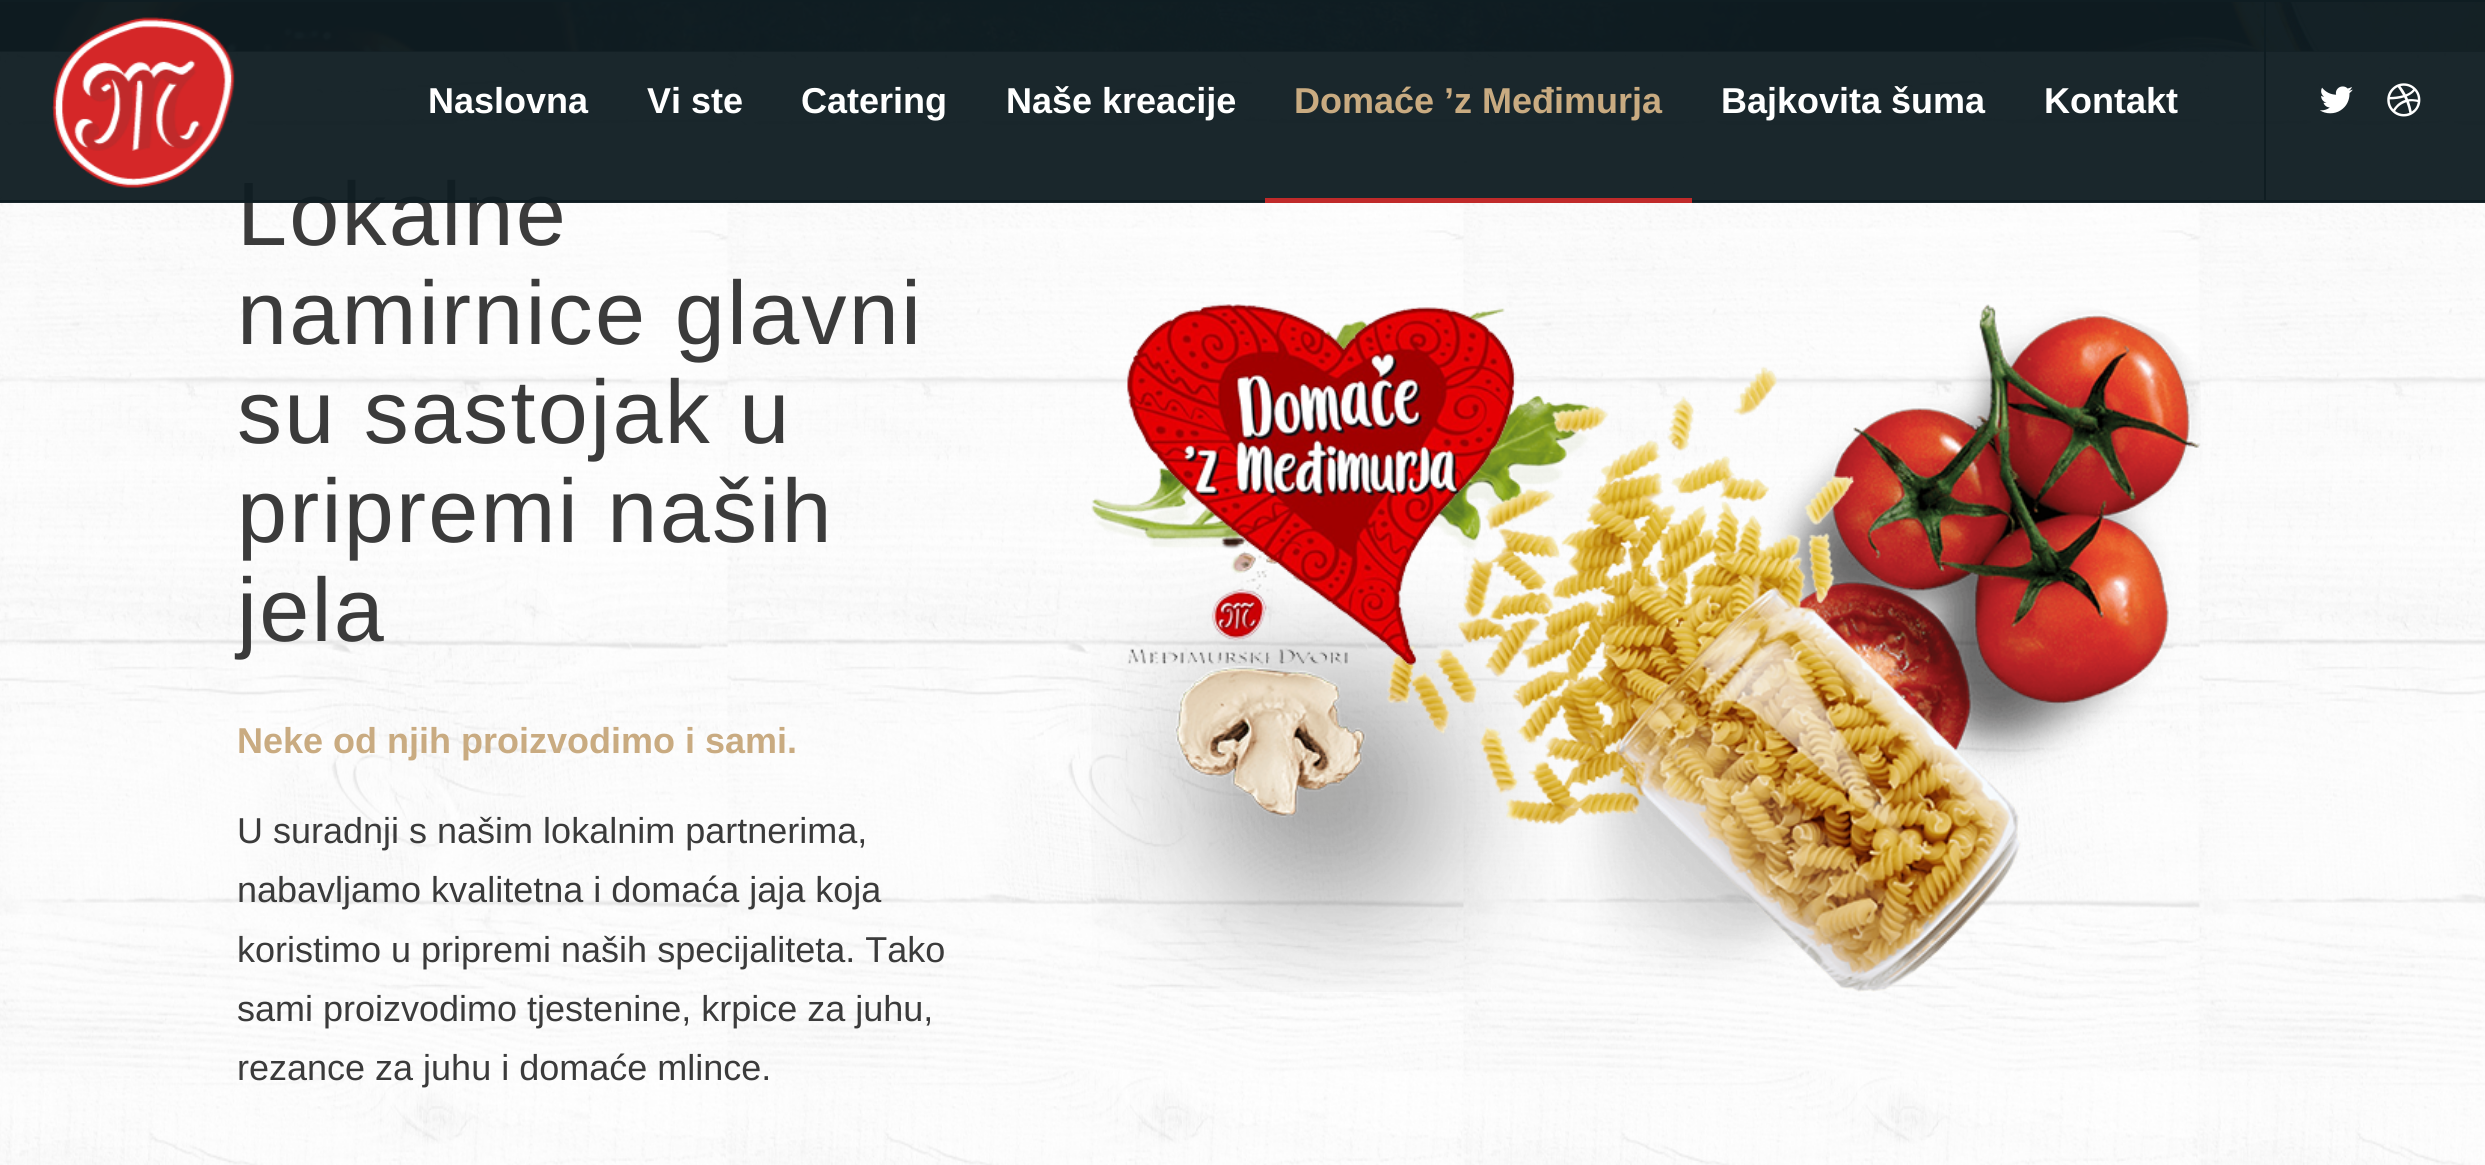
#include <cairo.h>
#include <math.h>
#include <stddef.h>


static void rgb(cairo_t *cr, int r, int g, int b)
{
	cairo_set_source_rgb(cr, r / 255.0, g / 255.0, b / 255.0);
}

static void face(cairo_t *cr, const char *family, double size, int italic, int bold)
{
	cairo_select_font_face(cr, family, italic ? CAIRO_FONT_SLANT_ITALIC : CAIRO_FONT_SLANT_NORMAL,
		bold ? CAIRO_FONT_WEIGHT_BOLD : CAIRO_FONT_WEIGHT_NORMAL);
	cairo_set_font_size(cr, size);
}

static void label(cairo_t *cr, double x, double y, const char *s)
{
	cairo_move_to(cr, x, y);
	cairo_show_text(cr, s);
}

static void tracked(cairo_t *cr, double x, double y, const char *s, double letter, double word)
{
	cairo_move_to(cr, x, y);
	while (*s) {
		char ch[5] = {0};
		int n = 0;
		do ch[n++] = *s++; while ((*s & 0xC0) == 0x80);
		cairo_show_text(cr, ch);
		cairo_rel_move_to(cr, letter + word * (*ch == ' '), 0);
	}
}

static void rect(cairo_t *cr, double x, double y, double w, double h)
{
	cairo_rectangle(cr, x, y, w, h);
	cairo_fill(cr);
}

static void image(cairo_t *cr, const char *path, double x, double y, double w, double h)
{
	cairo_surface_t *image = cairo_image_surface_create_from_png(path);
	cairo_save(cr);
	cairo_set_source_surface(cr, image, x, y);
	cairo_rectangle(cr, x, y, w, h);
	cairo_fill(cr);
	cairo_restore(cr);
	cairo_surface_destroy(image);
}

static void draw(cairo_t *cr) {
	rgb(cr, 255, 255, 255);
	cairo_paint(cr);
	image(cr, "image3.png", 0, 2, 2485, 50);
	image(cr, "image4.png", 0, 51, 2485, 1114);
	cairo_set_source_rgba(cr, 0.039, 0.039, 0.039, 0.5);
	rect(cr, 0, 2, 2485, 50);
	face(cr, "Liberation Sans", 90, 0, 0);
	rgb(cr, 59, 59, 59);
	tracked(cr, 237, 245, "Lokalne", 2.25, 0);
	cairo_set_source_rgba(cr, 0.059, 0.114, 0.133, 0.95);
	rect(cr, 0, 2, 2485, 201);
	rgb(cr, 15, 29, 34);
	rect(cr, 0, 0, 2485, 2);
	rect(cr, 0, 200, 2485, 2);
	image(cr, "image0.png", 52, 17, 183, 171);
	rect(cr, 2264, 2, 2, 198);
	face(cr, "Liberation Sans", 36, 0, 1);
	rgb(cr, 255, 255, 255);
	label(cr, 428, 113, "Naslovna");
	label(cr, 647, 113, "Vi ste");
	label(cr, 801, 113, "Catering");
	label(cr, 1006, 113, "Naše kreacije");
	rgb(cr, 201, 171, 129);
	label(cr, 1294, 113, "Domaće ’z Međimurja");
	rgb(cr, 192, 42, 42);
	rect(cr, 1265, 198, 427, 5);
	rgb(cr, 255, 255, 255);
	label(cr, 1721, 113, "Bajkovita šuma");
	label(cr, 2044, 113, "Kontakt");
	image(cr, "image1.png", 2320, 86, 33, 28);
	image(cr, "image2.png", 2387, 83, 34, 34);
	face(cr, "Liberation Sans", 90, 0, 0);
	rgb(cr, 59, 59, 59);
	tracked(cr, 237, 344, "namirnice glavni", 2.25, 0);
	tracked(cr, 237, 443, "su sastojak u", 2.25, 0);
	tracked(cr, 237, 542, "pripremi naših", 2.25, 0);
	tracked(cr, 237, 641, "jela", 2.25, 0);
	face(cr, "Liberation Sans", 36, 0, 1);
	rgb(cr, 201, 171, 129);
	label(cr, 237, 753, "Neke od njih proizvodimo i sami.");
	face(cr, "Liberation Sans", 36, 0, 0);
	rgb(cr, 59, 59, 59);
	label(cr, 237, 843, "U suradnji s našim lokalnim partnerima,");
	label(cr, 237, 902, "nabavljamo kvalitetna i domaća jaja koja");
	label(cr, 237, 962, "koristimo u pripremi naših specijaliteta. Tako");
	label(cr, 237, 1021, "sami proizvodimo tjestenine, krpice za juhu,");
	label(cr, 237, 1080, "rezance za juhu i domaće mlince.");
	image(cr, "image5.png", 1091, 304, 1110, 688);
}

int main(void) {
	cairo_surface_t *surface = cairo_image_surface_create(CAIRO_FORMAT_RGB24, 2485, 1165);
	cairo_t *cr = cairo_create(surface);
	cairo_font_options_t *options = cairo_font_options_create();
	cairo_font_options_set_hint_metrics(options, CAIRO_HINT_METRICS_OFF);
	cairo_font_options_set_hint_style(options, CAIRO_HINT_STYLE_NONE);
	cairo_set_font_options(cr, options);
	cairo_set_miter_limit(cr, 4);
	draw(cr);
	cairo_surface_write_to_png(surface, "render.png");
	cairo_font_options_destroy(options);
	cairo_destroy(cr);
	cairo_surface_destroy(surface);
	return 0;
}
